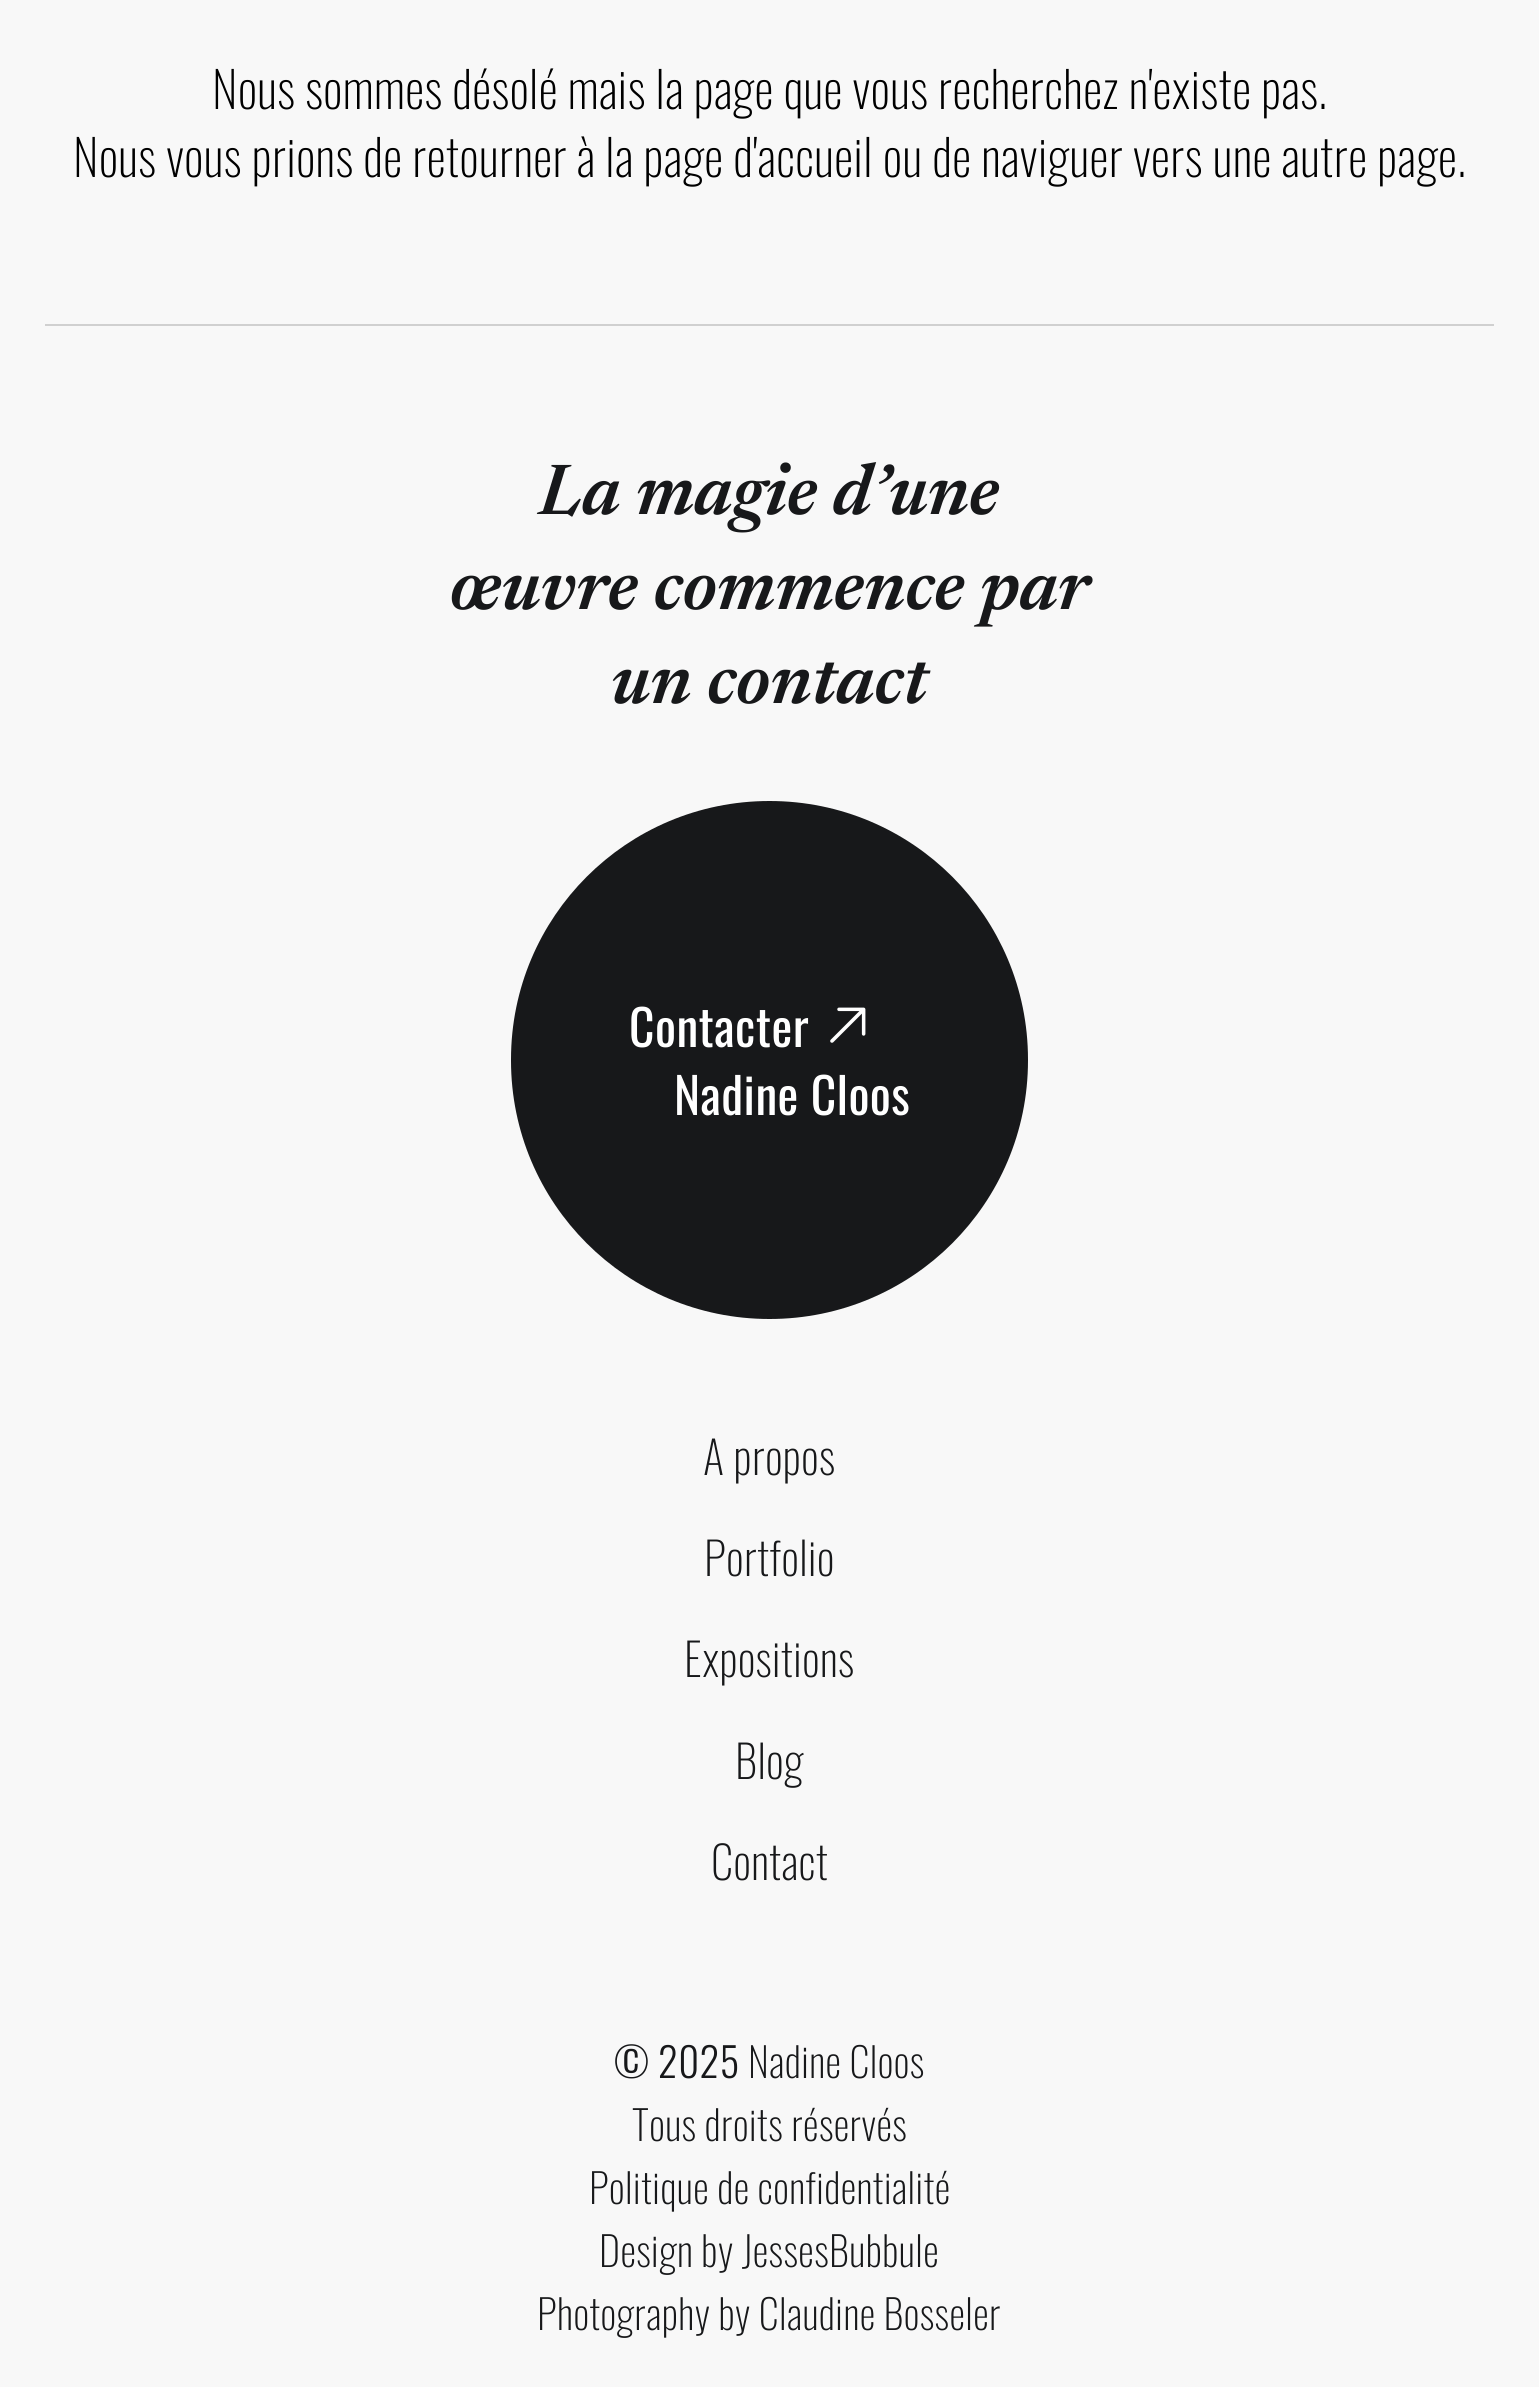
#include <cairo.h>
#include <math.h>
#include <stddef.h>


static void rgb(cairo_t *cr, int r, int g, int b)
{
	cairo_set_source_rgb(cr, r / 255.0, g / 255.0, b / 255.0);
}

static void face(cairo_t *cr, const char *family, double size, int italic, int bold)
{
	cairo_select_font_face(cr, family, italic ? CAIRO_FONT_SLANT_ITALIC : CAIRO_FONT_SLANT_NORMAL,
		bold ? CAIRO_FONT_WEIGHT_BOLD : CAIRO_FONT_WEIGHT_NORMAL);
	cairo_set_font_size(cr, size);
}

static void label(cairo_t *cr, double x, double y, const char *s)
{
	cairo_move_to(cr, x, y);
	cairo_show_text(cr, s);
}

static void tracked(cairo_t *cr, double x, double y, const char *s, double letter, double word)
{
	cairo_move_to(cr, x, y);
	while (*s) {
		char ch[5] = {0};
		int n = 0;
		do ch[n++] = *s++; while ((*s & 0xC0) == 0x80);
		cairo_show_text(cr, ch);
		cairo_rel_move_to(cr, letter + word * (*ch == ' '), 0);
	}
}

static void rect(cairo_t *cr, double x, double y, double w, double h)
{
	cairo_rectangle(cr, x, y, w, h);
	cairo_fill(cr);
}

static void rrect(cairo_t *cr, double x, double y, double w, double h, double r)
{
	cairo_new_sub_path(cr);
	cairo_arc(cr, x + w - r, y + h - r, r, 0, M_PI / 2);
	cairo_arc(cr, x + r, y + h - r, r, M_PI / 2, M_PI);
	cairo_arc(cr, x + r, y + r, r, M_PI, 1.5 * M_PI);
	cairo_arc(cr, x + w - r, y + r, r, 1.5 * M_PI, 2 * M_PI);
	cairo_close_path(cr);
}

static void image(cairo_t *cr, const char *path, double x, double y, double w, double h)
{
	cairo_surface_t *image = cairo_image_surface_create_from_png(path);
	cairo_save(cr);
	cairo_set_source_surface(cr, image, x, y);
	cairo_rectangle(cr, x, y, w, h);
	cairo_fill(cr);
	cairo_restore(cr);
	cairo_surface_destroy(image);
}

static void draw(cairo_t *cr) {
	rgb(cr, 248, 248, 248);
	cairo_paint(cr);
	face(cr, "Oswald ExtraLight", 49.5, 0, 0);
	rgb(cr, 0, 0, 0);
	tracked(cr, 212, 109, "Nous sommes désolé mais la page que vous recherchez n'existe pas.", 0.45, 0);
	tracked(cr, 73, 177, "Nous vous prions de retourner à la page d'accueil", 0.45, 0);
	tracked(cr, 883, 177, "ou de naviguer vers une autre page.", 0.45, 0);
	rgb(cr, 208, 208, 208);
	rect(cr, 45, 324, 1449, 2);
	face(cr, "Newsreader SemiBold", 72, 1, 0);
	rgb(cr, 23, 24, 26);
	label(cr, 539, 514, "La magie d’une");
	label(cr, 450, 609, "œuvre commence par");
	label(cr, 611, 703, "un contact");
	rrect(cr, 511, 801, 517, 518, 258.5);
	cairo_fill(cr);
	face(cr, "Oswald", 49.5, 0, 0);
	rgb(cr, 255, 255, 255);
	tracked(cr, 629, 1047, "Contacter", 0.45, 0);
	image(cr, "image0.png", 830, 1007, 36, 36);
	tracked(cr, 674, 1115, "Nadine Cloos", 0.45, 0);
	face(cr, "Oswald ExtraLight", 45, 0, 0);
	rgb(cr, 23, 24, 26);
	tracked(cr, 703, 1475, "A propos", 0.45, 0);
	tracked(cr, 704, 1576, "Portfolio", 0.45, 0);
	tracked(cr, 684, 1677, "Expositions", 0.45, 0);
	tracked(cr, 735, 1779, "Blog", 0.45, 0);
	tracked(cr, 711, 1880, "Contact", 0.45, 0);
	face(cr, "Oswald Light", 40.5, 0, 0);
	tracked(cr, 614, 2078, "© 2025", 0.45, 0);
	face(cr, "Oswald ExtraLight", 40.5, 0, 0);
	tracked(cr, 748, 2078, "Nadine Cloos", 0.45, 0);
	tracked(cr, 632, 2141, "Tous droits réservés", 0.45, 0);
	tracked(cr, 589, 2204, "Politique de confidentialité", 0.45, 0);
	tracked(cr, 599, 2267, "Design by JessesBubbule", 0.45, 0);
	tracked(cr, 537, 2330, "Photography by Claudine Bosseler", 0.45, 0);
}

int main(void) {
	cairo_surface_t *surface = cairo_image_surface_create(CAIRO_FORMAT_RGB24, 1539, 2387);
	cairo_t *cr = cairo_create(surface);
	cairo_font_options_t *options = cairo_font_options_create();
	cairo_font_options_set_hint_metrics(options, CAIRO_HINT_METRICS_OFF);
	cairo_font_options_set_hint_style(options, CAIRO_HINT_STYLE_NONE);
	cairo_set_font_options(cr, options);
	cairo_set_miter_limit(cr, 4);
	draw(cr);
	cairo_surface_write_to_png(surface, "render.png");
	cairo_font_options_destroy(options);
	cairo_destroy(cr);
	cairo_surface_destroy(surface);
	return 0;
}
